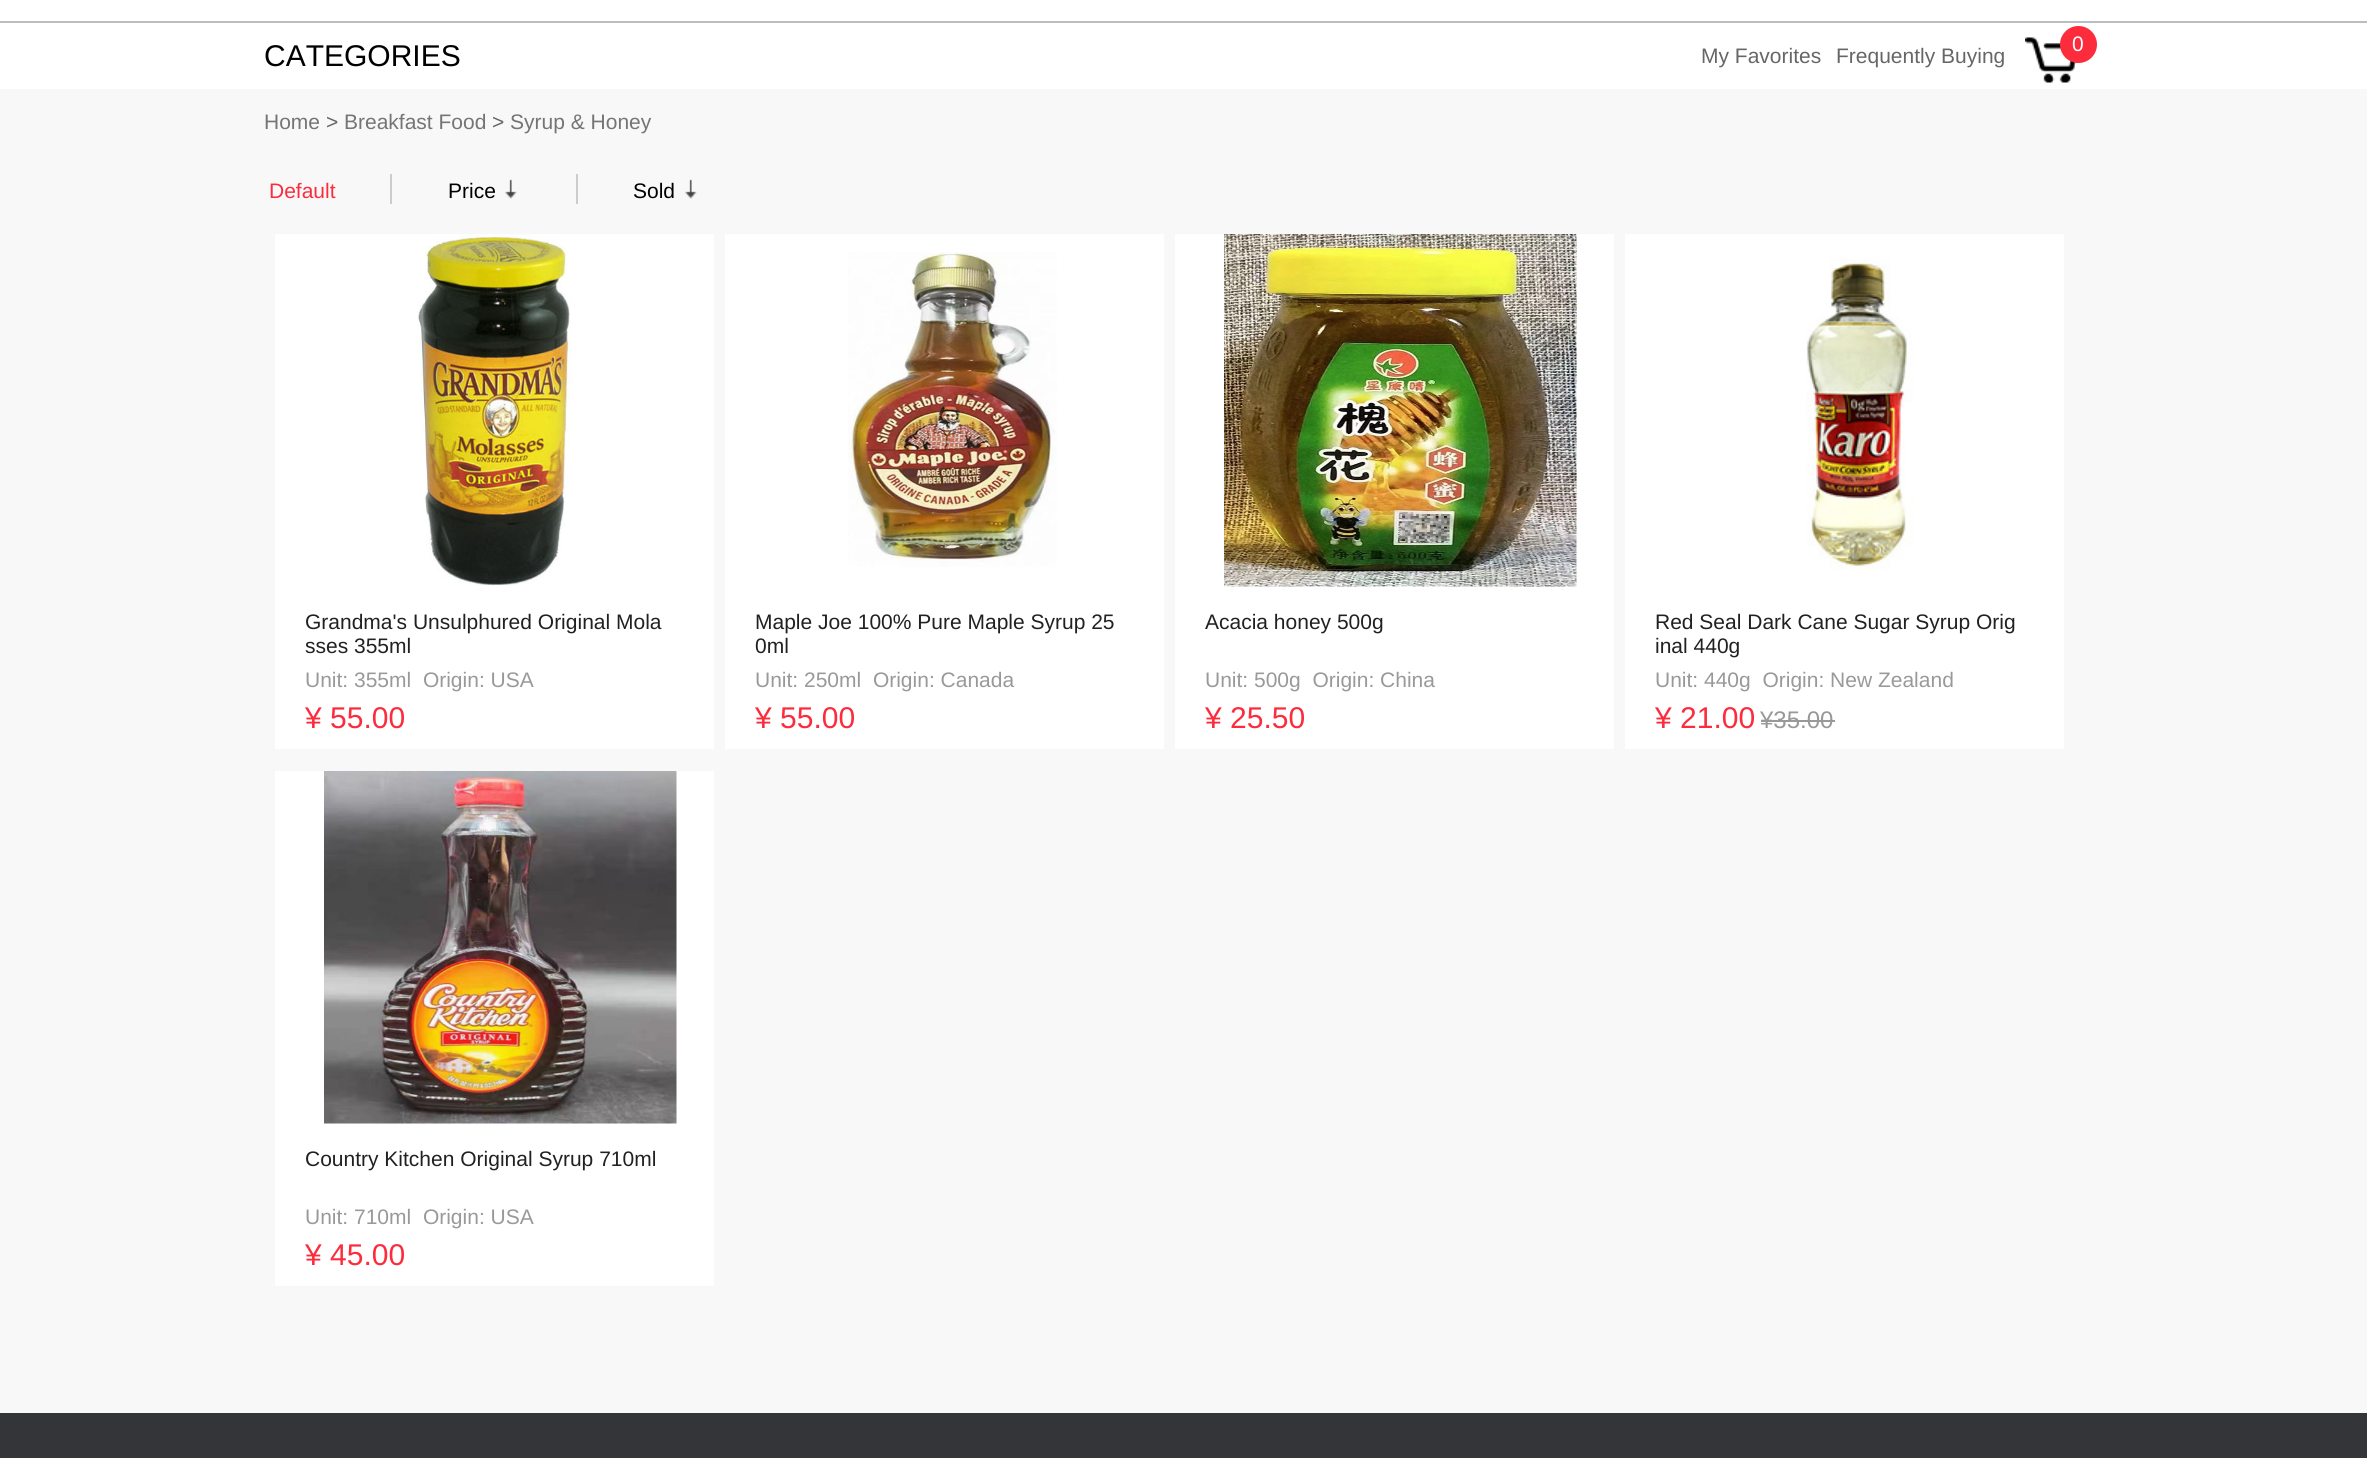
#include <cairo.h>
#include <math.h>
#include <stddef.h>


static void rgb(cairo_t *cr, int r, int g, int b)
{
	cairo_set_source_rgb(cr, r / 255.0, g / 255.0, b / 255.0);
}

static void face(cairo_t *cr, const char *family, double size, int italic, int bold)
{
	cairo_select_font_face(cr, family, italic ? CAIRO_FONT_SLANT_ITALIC : CAIRO_FONT_SLANT_NORMAL,
		bold ? CAIRO_FONT_WEIGHT_BOLD : CAIRO_FONT_WEIGHT_NORMAL);
	cairo_set_font_size(cr, size);
}

static void label(cairo_t *cr, double x, double y, const char *s)
{
	cairo_move_to(cr, x, y);
	cairo_show_text(cr, s);
}

static void rect(cairo_t *cr, double x, double y, double w, double h)
{
	cairo_rectangle(cr, x, y, w, h);
	cairo_fill(cr);
}

static void image(cairo_t *cr, const char *path, double x, double y, double w, double h)
{
	cairo_surface_t *image = cairo_image_surface_create_from_png(path);
	cairo_save(cr);
	cairo_set_source_surface(cr, image, x, y);
	cairo_rectangle(cr, x, y, w, h);
	cairo_fill(cr);
	cairo_restore(cr);
	cairo_surface_destroy(image);
}

static void draw(cairo_t *cr) {
	rgb(cr, 248, 248, 248);
	cairo_paint(cr);
	rgb(cr, 255, 255, 255);
	rect(cr, 0, 0, 2367, 21);
	rect(cr, 0, 23, 2367, 66);
	rgb(cr, 190, 190, 194);
	rect(cr, 0, 21, 2367, 2);
	face(cr, "Liberation Sans", 30, 0, 0);
	rgb(cr, 0, 0, 0);
	label(cr, 264, 66, "CATEGORIES");
	face(cr, "Liberation Sans", 21, 0, 0);
	rgb(cr, 102, 102, 102);
	label(cr, 1701, 63, "My Favorites");
	label(cr, 1836, 63, "Frequently Buying");
	image(cr, "image0.png", 2025, 37, 52, 46);
	rgb(cr, 252, 44, 61);
	cairo_arc(cr, 2078.5, 44.5, 18.5, 0, 2 * M_PI);
	cairo_fill(cr);
	rgb(cr, 255, 255, 255);
	label(cr, 2072, 51, "0");
	rgb(cr, 117, 117, 117);
	label(cr, 264, 129, "Home");
	rgb(cr, 102, 102, 102);
	label(cr, 326, 129, ">");
	rgb(cr, 117, 117, 117);
	label(cr, 344, 129, "Breakfast Food");
	rgb(cr, 102, 102, 102);
	label(cr, 492, 129, ">");
	rgb(cr, 117, 117, 117);
	label(cr, 510, 129, "Syrup & Honey");
	rgb(cr, 204, 204, 204);
	rect(cr, 390, 174, 2, 30);
	rgb(cr, 252, 44, 61);
	label(cr, 269, 198, "Default");
	rgb(cr, 204, 204, 204);
	rect(cr, 576, 174, 2, 30);
	rgb(cr, 0, 0, 0);
	label(cr, 448, 198, "Price");
	image(cr, "image1.png", 505, 179, 12, 20);
	label(cr, 633, 198, "Sold");
	image(cr, "image2.png", 685, 179, 12, 20);
	rgb(cr, 255, 255, 255);
	rect(cr, 275, 234, 439, 515);
	image(cr, "image3.png", 417, 234, 155, 352);
	rgb(cr, 33, 33, 33);
	label(cr, 305, 629, "Grandma's Unsulphured Original Mola");
	label(cr, 305, 653, "sses 355ml");
	rgb(cr, 153, 153, 153);
	label(cr, 305, 687, "Unit: 355ml  Origin: USA");
	face(cr, "Liberation Sans", 30, 0, 0);
	rgb(cr, 252, 44, 61);
	label(cr, 305, 728, "¥ 55.00");
	rgb(cr, 255, 255, 255);
	rect(cr, 725, 234, 439, 515);
	image(cr, "image4.png", 848, 252, 209, 315);
	face(cr, "Liberation Sans", 21, 0, 0);
	rgb(cr, 33, 33, 33);
	label(cr, 755, 629, "Maple Joe 100% Pure Maple Syrup 25");
	label(cr, 755, 653, "0ml");
	rgb(cr, 153, 153, 153);
	label(cr, 755, 687, "Unit: 250ml  Origin: Canada");
	face(cr, "Liberation Sans", 30, 0, 0);
	rgb(cr, 252, 44, 61);
	label(cr, 755, 728, "¥ 55.00");
	rgb(cr, 255, 255, 255);
	rect(cr, 1175, 234, 439, 515);
	image(cr, "image5.png", 1224, 234, 353, 353);
	face(cr, "Liberation Sans", 21, 0, 0);
	rgb(cr, 33, 33, 33);
	label(cr, 1205, 629, "Acacia honey 500g");
	rgb(cr, 153, 153, 153);
	label(cr, 1205, 687, "Unit: 500g  Origin: China");
	face(cr, "Liberation Sans", 30, 0, 0);
	rgb(cr, 252, 44, 61);
	label(cr, 1205, 728, "¥ 25.50");
	rgb(cr, 255, 255, 255);
	rect(cr, 1625, 234, 439, 515);
	image(cr, "image6.png", 1806, 258, 108, 312);
	face(cr, "Liberation Sans", 21, 0, 0);
	rgb(cr, 33, 33, 33);
	label(cr, 1655, 629, "Red Seal Dark Cane Sugar Syrup Orig");
	label(cr, 1655, 653, "inal 440g");
	rgb(cr, 153, 153, 153);
	label(cr, 1655, 687, "Unit: 440g  Origin: New Zealand");
	face(cr, "Liberation Sans", 30, 0, 0);
	rgb(cr, 252, 44, 61);
	label(cr, 1655, 728, "¥ 21.00");
	face(cr, "Liberation Sans", 24, 0, 0);
	rgb(cr, 153, 153, 153);
	label(cr, 1760, 728, "¥35.00");
	rect(cr, 1761, 720, 74, 2);
	rgb(cr, 255, 255, 255);
	rect(cr, 275, 771, 439, 515);
	image(cr, "image7.png", 324, 771, 353, 353);
	face(cr, "Liberation Sans", 21, 0, 0);
	rgb(cr, 33, 33, 33);
	label(cr, 305, 1166, "Country Kitchen Original Syrup 710ml");
	rgb(cr, 153, 153, 153);
	label(cr, 305, 1224, "Unit: 710ml  Origin: USA");
	face(cr, "Liberation Sans", 30, 0, 0);
	rgb(cr, 252, 44, 61);
	label(cr, 305, 1265, "¥ 45.00");
	rgb(cr, 51, 53, 56);
	rect(cr, 0, 1413, 2367, 45);
}

int main(void) {
	cairo_surface_t *surface = cairo_image_surface_create(CAIRO_FORMAT_RGB24, 2367, 1458);
	cairo_t *cr = cairo_create(surface);
	cairo_font_options_t *options = cairo_font_options_create();
	cairo_font_options_set_hint_metrics(options, CAIRO_HINT_METRICS_OFF);
	cairo_font_options_set_hint_style(options, CAIRO_HINT_STYLE_NONE);
	cairo_set_font_options(cr, options);
	cairo_set_miter_limit(cr, 4);
	draw(cr);
	cairo_surface_write_to_png(surface, "render.png");
	cairo_font_options_destroy(options);
	cairo_destroy(cr);
	cairo_surface_destroy(surface);
	return 0;
}
